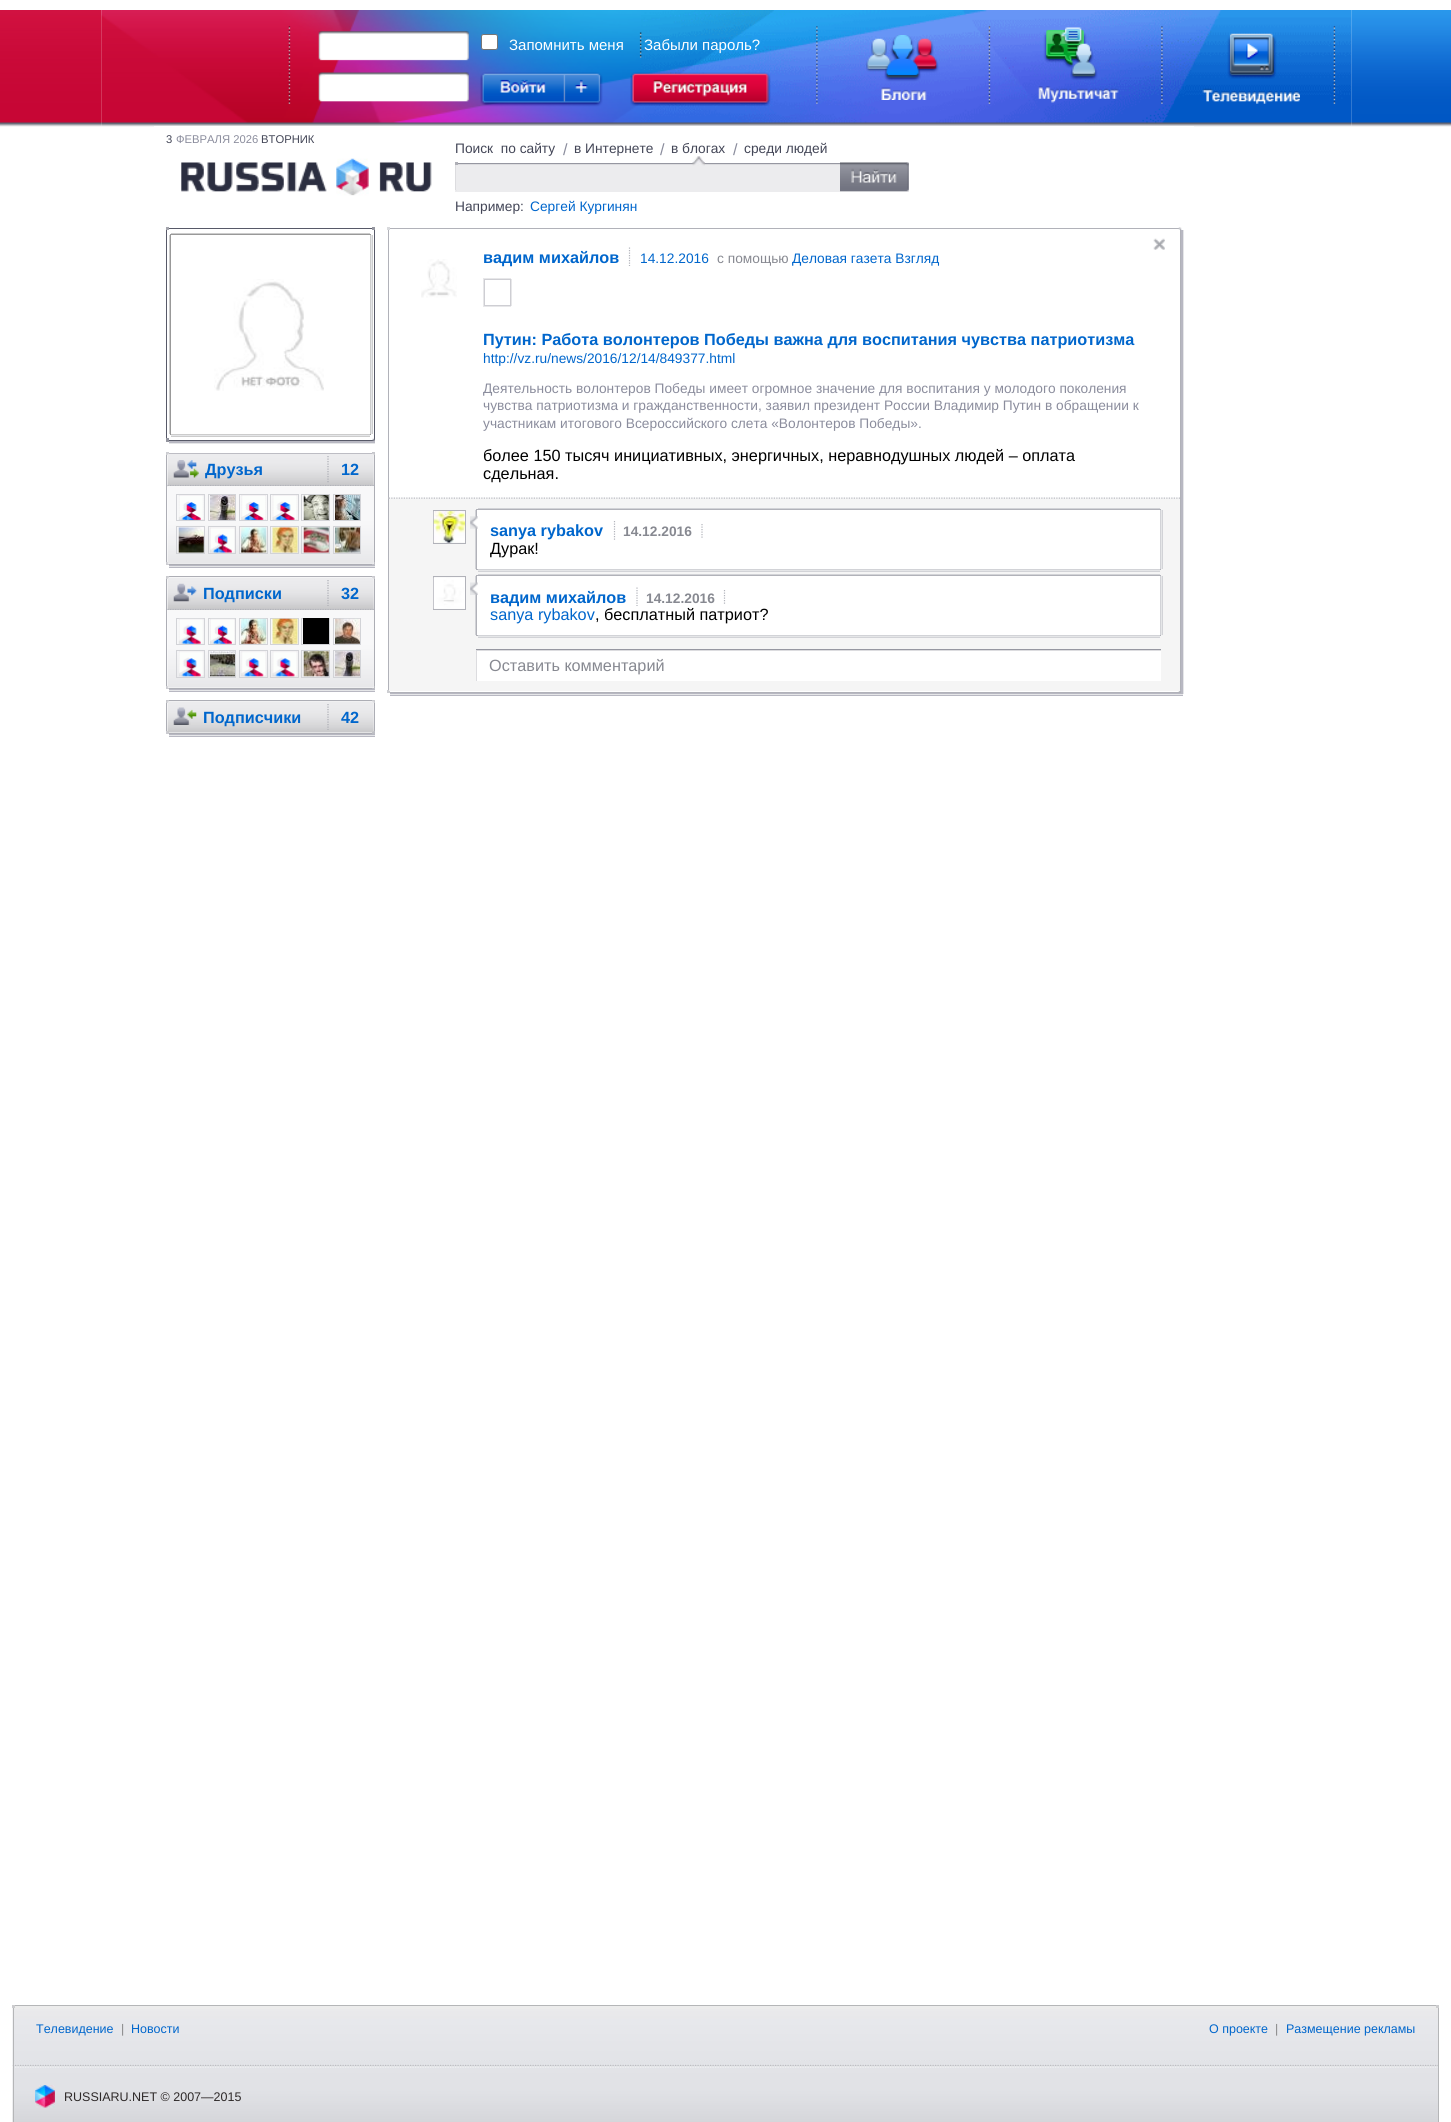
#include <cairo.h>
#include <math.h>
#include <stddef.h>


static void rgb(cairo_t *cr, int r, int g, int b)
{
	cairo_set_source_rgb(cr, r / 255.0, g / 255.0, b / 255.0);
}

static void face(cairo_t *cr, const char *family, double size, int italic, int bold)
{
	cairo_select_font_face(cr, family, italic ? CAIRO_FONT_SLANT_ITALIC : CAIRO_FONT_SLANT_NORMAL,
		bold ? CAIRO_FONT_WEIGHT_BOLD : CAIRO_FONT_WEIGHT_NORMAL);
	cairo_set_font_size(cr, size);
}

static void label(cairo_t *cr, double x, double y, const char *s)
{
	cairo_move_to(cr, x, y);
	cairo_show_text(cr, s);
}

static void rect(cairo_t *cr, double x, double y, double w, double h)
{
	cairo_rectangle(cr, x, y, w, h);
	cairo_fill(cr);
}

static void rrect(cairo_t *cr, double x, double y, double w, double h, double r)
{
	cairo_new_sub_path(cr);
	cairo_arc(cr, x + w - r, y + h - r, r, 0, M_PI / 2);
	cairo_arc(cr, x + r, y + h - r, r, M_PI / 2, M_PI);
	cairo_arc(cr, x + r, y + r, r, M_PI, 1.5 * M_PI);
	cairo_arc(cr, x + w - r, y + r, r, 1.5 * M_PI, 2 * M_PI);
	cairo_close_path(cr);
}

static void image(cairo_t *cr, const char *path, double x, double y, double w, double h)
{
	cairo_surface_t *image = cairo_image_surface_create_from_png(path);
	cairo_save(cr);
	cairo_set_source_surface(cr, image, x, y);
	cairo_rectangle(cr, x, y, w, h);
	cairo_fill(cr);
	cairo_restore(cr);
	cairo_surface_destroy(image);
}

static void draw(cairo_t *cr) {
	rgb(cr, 255, 255, 255);
	cairo_paint(cr);
	image(cr, "image0.png", 0, 10, 102, 117);
	image(cr, "image1.png", 101, 10, 1251, 117);
	rgb(cr, 255, 255, 255);
	rrect(cr, 481.5, 34.5, 16, 15, 2);
	cairo_fill_preserve(cr);
	rgb(cr, 118, 118, 118);
	cairo_set_line_width(cr, 1);
	cairo_stroke(cr);
	face(cr, "Liberation Sans", 15, 0, 0);
	rgb(cr, 255, 255, 255);
	label(cr, 509, 50, "Запомнить меня");
	label(cr, 644, 50, "Забыли пароль?");
	rect(cr, 325, 75, 135, 1);
	image(cr, "image2.png", 480, 72, 123, 35);
	image(cr, "image3.png", 630, 72, 141, 34);
	image(cr, "image4.png", 866, 35, 73, 65);
	image(cr, "image5.png", 1038, 27, 81, 76);
	image(cr, "image6.png", 1202, 33, 98, 71);
	image(cr, "image7.png", 1351, 10, 100, 117);
	rect(cr, 154, 126, 1040, 1);
	face(cr, "Liberation Sans", 11.25, 0, 0);
	rgb(cr, 67, 70, 87);
	label(cr, 166, 143, "3");
	rgb(cr, 139, 141, 157);
	label(cr, 176, 143, "ФЕВРАЛЯ 2026");
	rgb(cr, 67, 70, 87);
	label(cr, 261, 143, "ВТОРНИК");
	image(cr, "image8.png", 181, 158, 251, 38);
	face(cr, "Liberation Sans", 13.75, 0, 0);
	label(cr, 455, 153, "Поиск  по сайту");
	face(cr, "Liberation Sans", 16.25, 0, 0);
	rgb(cr, 139, 141, 157);
	label(cr, 563, 155, "/");
	face(cr, "Liberation Sans", 13.75, 0, 0);
	rgb(cr, 67, 70, 87);
	label(cr, 574, 153, "в Интернете");
	face(cr, "Liberation Sans", 16.25, 0, 0);
	rgb(cr, 139, 141, 157);
	label(cr, 660, 155, "/");
	rgb(cr, 150, 151, 161);
	rect(cr, 455, 163, 454, 1);
	rgb(cr, 236, 236, 238);
	rect(cr, 455, 165, 454, 27);
	rgb(cr, 220, 220, 223);
	rect(cr, 455, 164, 454, 1);
	image(cr, "image9.png", 692, 156, 13, 10);
	face(cr, "Liberation Sans", 13.75, 0, 0);
	rgb(cr, 67, 70, 87);
	label(cr, 671, 153, "в блогах");
	face(cr, "Liberation Sans", 16.25, 0, 0);
	rgb(cr, 139, 141, 157);
	label(cr, 733, 155, "/");
	face(cr, "Liberation Sans", 13.75, 0, 0);
	rgb(cr, 67, 70, 87);
	label(cr, 744, 153, "среди людей");
	rgb(cr, 220, 220, 223);
	rect(cr, 455, 164, 1, 27);
	rgb(cr, 174, 175, 182);
	rect(cr, 455, 162, 3, 3);
	image(cr, "image10.png", 906, 162, 2, 1);
	image(cr, "image11.png", 455, 190, 2, 1);
	image(cr, "image12.png", 840, 162, 69, 30);
	rgb(cr, 67, 70, 87);
	label(cr, 455, 211, "Например:");
	rgb(cr, 0, 102, 204);
	label(cr, 530, 211, "Сергей Кургинян");
	cairo_rectangle(cr, 166.5, 228.5, 208, 212);
	rgb(cr, 87, 89, 104);
	cairo_stroke(cr);
	rgb(cr, 163, 164, 172);
	rect(cr, 166, 227, 3, 3);
	rgb(cr, 150, 151, 160);
	rect(cr, 372, 227, 3, 3);
	cairo_rectangle(cr, 170.5, 234.5, 200, 200);
	rgb(cr, 153, 153, 153);
	cairo_stroke(cr);
	rgb(cr, 204, 204, 204);
	rect(cr, 171, 233, 199, 1);
	rect(cr, 169, 235, 1, 199);
	image(cr, "image13.png", 214, 279, 110, 112);
	rect(cr, 370, 235, 3, 199);
	rgb(cr, 229, 230, 232);
	rect(cr, 371, 235, 1, 199);
	rgb(cr, 204, 204, 204);
	rect(cr, 171, 434, 199, 3);
	rgb(cr, 229, 230, 232);
	rect(cr, 171, 435, 199, 1);
	rgb(cr, 147, 148, 158);
	rect(cr, 166, 438, 3, 4);
	image(cr, "image14.png", 372, 438, 3, 3);
	rgb(cr, 184, 184, 194);
	rect(cr, 169, 441, 207, 2);
	rgb(cr, 229, 230, 232);
	rect(cr, 169, 443, 207, 1);
	cairo_rectangle(cr, 166.5, 453.5, 208, 111);
	rgb(cr, 173, 174, 181);
	cairo_stroke(cr);
	rgb(cr, 205, 206, 210);
	rect(cr, 166, 452, 3, 3);
	rgb(cr, 198, 198, 203);
	rect(cr, 372, 452, 3, 3);
	image(cr, "image15.png", 167, 453, 207, 34);
	cairo_new_path(cr);
	cairo_move_to(cr, 167.5, 485.5);
	cairo_line_to(cr, 374, 485.5);
	rgb(cr, 178, 180, 187);
	cairo_set_line_width(cr, 1.2);
	cairo_set_dash(cr, (double[]){1.25, 1.25}, 2, 0);
	cairo_stroke(cr);
	image(cr, "image16.png", 173, 460, 26, 18);
	face(cr, "Liberation Sans", 16.25, 0, 1);
	rgb(cr, 0, 102, 204);
	label(cr, 205, 475, "Друзья");
	cairo_new_path(cr);
	cairo_move_to(cr, 328, 456);
	cairo_line_to(cr, 328, 482.5);
	rgb(cr, 173, 174, 181);
	cairo_stroke(cr);
	rgb(cr, 0, 102, 204);
	label(cr, 341, 475, "12");
	rgb(cr, 205, 205, 210);
	rect(cr, 166, 562, 3, 3);
	rgb(cr, 194, 194, 200);
	rect(cr, 372, 562, 3, 3);
	rgb(cr, 248, 248, 248);
	rect(cr, 168, 486, 206, 78);
	image(cr, "image17.png", 167, 487, 207, 77);
	cairo_rectangle(cr, 176.5, 494.5, 28, 26);
	rgb(cr, 210, 211, 215);
	cairo_set_line_width(cr, 1);
	cairo_set_dash(cr, NULL, 0, 0);
	cairo_stroke(cr);
	cairo_rectangle(cr, 208.5, 494.5, 27, 26);
	cairo_stroke(cr);
	cairo_rectangle(cr, 239.5, 494.5, 28, 26);
	cairo_stroke(cr);
	cairo_rectangle(cr, 270.5, 494.5, 28, 26);
	cairo_stroke(cr);
	cairo_rectangle(cr, 301.5, 494.5, 28, 26);
	cairo_stroke(cr);
	cairo_rectangle(cr, 333.5, 494.5, 27, 26);
	cairo_stroke(cr);
	image(cr, "image18.png", 178, 495, 26, 25);
	image(cr, "image19.png", 210, 495, 25, 25);
	image(cr, "image20.png", 241, 495, 25, 25);
	image(cr, "image21.png", 272, 495, 26, 25);
	image(cr, "image22.png", 303, 495, 26, 25);
	image(cr, "image23.png", 335, 495, 25, 25);
	cairo_rectangle(cr, 176.5, 526.5, 28, 27);
	cairo_stroke(cr);
	cairo_rectangle(cr, 208.5, 526.5, 27, 27);
	cairo_stroke(cr);
	cairo_rectangle(cr, 239.5, 526.5, 28, 27);
	cairo_stroke(cr);
	cairo_rectangle(cr, 270.5, 526.5, 28, 27);
	cairo_stroke(cr);
	cairo_rectangle(cr, 301.5, 526.5, 28, 27);
	cairo_stroke(cr);
	cairo_rectangle(cr, 333.5, 526.5, 27, 27);
	cairo_stroke(cr);
	image(cr, "image24.png", 178, 527, 26, 26);
	image(cr, "image25.png", 210, 527, 25, 26);
	image(cr, "image26.png", 241, 527, 26, 26);
	image(cr, "image27.png", 272, 527, 26, 26);
	image(cr, "image28.png", 303, 527, 26, 26);
	image(cr, "image29.png", 335, 527, 25, 26);
	rgb(cr, 184, 184, 194);
	rect(cr, 169, 565, 207, 3);
	rgb(cr, 229, 230, 232);
	rect(cr, 169, 566, 207, 1);
	cairo_rectangle(cr, 166.5, 576.5, 208, 112);
	rgb(cr, 173, 174, 181);
	cairo_stroke(cr);
	rgb(cr, 202, 203, 207);
	rect(cr, 166, 576, 3, 3);
	rgb(cr, 201, 201, 206);
	rect(cr, 372, 576, 3, 3);
	image(cr, "image30.png", 167, 577, 207, 33);
	cairo_new_path(cr);
	cairo_move_to(cr, 167.5, 609.5);
	cairo_line_to(cr, 374, 609.5);
	rgb(cr, 178, 180, 187);
	cairo_set_line_width(cr, 1.2);
	cairo_set_dash(cr, (double[]){1.25, 1.25}, 2, 0);
	cairo_stroke(cr);
	image(cr, "image31.png", 173, 583, 24, 19);
	rgb(cr, 0, 102, 204);
	label(cr, 203, 599, "Подписки");
	cairo_new_path(cr);
	cairo_move_to(cr, 328, 580);
	cairo_line_to(cr, 328, 606);
	rgb(cr, 173, 174, 181);
	cairo_stroke(cr);
	rgb(cr, 0, 102, 204);
	label(cr, 341, 599, "32");
	rgb(cr, 204, 204, 209);
	rect(cr, 166, 686, 3, 3);
	rgb(cr, 188, 189, 195);
	rect(cr, 372, 686, 3, 3);
	rgb(cr, 248, 248, 248);
	rect(cr, 168, 610, 206, 78);
	image(cr, "image32.png", 167, 611, 207, 77);
	cairo_rectangle(cr, 176.5, 618.5, 28, 26);
	rgb(cr, 210, 211, 215);
	cairo_set_line_width(cr, 1);
	cairo_set_dash(cr, NULL, 0, 0);
	cairo_stroke(cr);
	image(cr, "image33.png", 178, 618, 26, 26);
	cairo_rectangle(cr, 208.5, 618.5, 27, 26);
	cairo_stroke(cr);
	image(cr, "image34.png", 210, 618, 25, 26);
	cairo_rectangle(cr, 239.5, 618.5, 28, 26);
	cairo_stroke(cr);
	image(cr, "image35.png", 241, 618, 26, 26);
	cairo_rectangle(cr, 270.5, 618.5, 28, 26);
	cairo_stroke(cr);
	image(cr, "image36.png", 272, 618, 26, 26);
	cairo_rectangle(cr, 301.5, 618.5, 28, 26);
	cairo_stroke(cr);
	rgb(cr, 0, 0, 0);
	rect(cr, 303, 618, 26, 26);
	cairo_rectangle(cr, 333.5, 618.5, 27, 26);
	rgb(cr, 210, 211, 215);
	cairo_stroke(cr);
	image(cr, "image37.png", 335, 618, 25, 26);
	cairo_rectangle(cr, 176.5, 650.5, 28, 27);
	cairo_stroke(cr);
	cairo_rectangle(cr, 208.5, 650.5, 27, 27);
	cairo_stroke(cr);
	cairo_rectangle(cr, 239.5, 650.5, 28, 27);
	cairo_stroke(cr);
	cairo_rectangle(cr, 270.5, 650.5, 28, 27);
	cairo_stroke(cr);
	cairo_rectangle(cr, 301.5, 650.5, 28, 27);
	cairo_stroke(cr);
	cairo_rectangle(cr, 333.5, 650.5, 27, 27);
	cairo_stroke(cr);
	image(cr, "image38.png", 179, 651, 25, 26);
	image(cr, "image39.png", 210, 651, 25, 26);
	image(cr, "image40.png", 241, 651, 25, 26);
	image(cr, "image41.png", 272, 651, 26, 26);
	image(cr, "image42.png", 303, 651, 26, 26);
	image(cr, "image43.png", 335, 651, 25, 26);
	rgb(cr, 184, 184, 194);
	rect(cr, 169, 689, 207, 3);
	rgb(cr, 229, 230, 232);
	rect(cr, 169, 690, 207, 1);
	cairo_rectangle(cr, 166.5, 700.5, 208, 33);
	rgb(cr, 173, 174, 181);
	cairo_stroke(cr);
	rgb(cr, 200, 201, 205);
	rect(cr, 166, 700, 3, 3);
	rgb(cr, 202, 203, 207);
	rect(cr, 372, 700, 3, 3);
	rgb(cr, 204, 204, 209);
	rect(cr, 166, 731, 3, 3);
	rgb(cr, 188, 189, 195);
	rect(cr, 372, 731, 3, 3);
	image(cr, "image44.png", 167, 701, 207, 32);
	image(cr, "image45.png", 173, 707, 24, 18);
	rgb(cr, 0, 102, 204);
	label(cr, 203, 723, "Подписчики");
	cairo_new_path(cr);
	cairo_move_to(cr, 328, 704);
	cairo_line_to(cr, 328, 730);
	rgb(cr, 173, 174, 181);
	cairo_set_line_width(cr, 1.2);
	cairo_set_dash(cr, (double[]){1.25, 1.25}, 2, 0);
	cairo_stroke(cr);
	rgb(cr, 0, 102, 204);
	label(cr, 341, 723, "42");
	rgb(cr, 184, 184, 194);
	rect(cr, 169, 734, 207, 3);
	rgb(cr, 229, 230, 232);
	rect(cr, 169, 735, 207, 1);
	rgb(cr, 255, 255, 255);
	rect(cr, 375, 441, 1, 296);
	cairo_rectangle(cr, 388.5, 228.5, 792, 464);
	rgb(cr, 177, 178, 185);
	cairo_set_line_width(cr, 1);
	cairo_set_dash(cr, NULL, 0, 0);
	cairo_stroke(cr);
	rgb(cr, 216, 217, 220);
	rect(cr, 387, 227, 3, 3);
	image(cr, "image46.png", 1178, 227, 4, 3);
	image(cr, "image47.png", 1153, 238, 12, 12);
	rgb(cr, 184, 184, 194);
	rect(cr, 1181, 230, 2, 464);
	rgb(cr, 229, 230, 232);
	rect(cr, 1183, 230, 1, 464);
	image(cr, "image48.png", 421, 259, 36, 39);
	rgb(cr, 0, 102, 204);
	label(cr, 483, 263, "вадим михайлов");
	cairo_new_path(cr);
	cairo_move_to(cr, 629.5, 247.5);
	cairo_line_to(cr, 629.5, 266);
	rgb(cr, 178, 180, 187);
	cairo_set_line_width(cr, 1.2);
	cairo_set_dash(cr, (double[]){1.25, 1.25}, 2, 0);
	cairo_stroke(cr);
	face(cr, "Liberation Sans", 13.75, 0, 0);
	rgb(cr, 0, 102, 204);
	label(cr, 640, 263, "14.12.2016");
	rgb(cr, 135, 137, 145);
	label(cr, 717, 263, "с помощью");
	rgb(cr, 0, 102, 204);
	label(cr, 792, 263, "Деловая газета Взгляд");
	cairo_rectangle(cr, 484.5, 279.5, 26, 26);
	rgb(cr, 206, 206, 211);
	cairo_set_line_width(cr, 1);
	cairo_set_dash(cr, NULL, 0, 0);
	cairo_stroke(cr);
	rgb(cr, 231, 231, 233);
	rect(cr, 483, 278, 28, 1);
	rect(cr, 483, 279, 1, 27);
	rect(cr, 511, 279, 1, 27);
	rect(cr, 483, 306, 28, 1);
	face(cr, "Liberation Sans", 16.25, 0, 1);
	rgb(cr, 0, 102, 204);
	label(cr, 483, 345, "Путин: Работа волонтеров Победы важна для воспитания чувства патриотизма");
	face(cr, "Liberation Sans", 13.75, 0, 0);
	label(cr, 483, 363, "http://vz.ru/news/2016/12/14/849377.html");
	cairo_save(cr);
	cairo_rectangle(cr, 483, 266, 666, 227);
	cairo_clip(cr);
	rgb(cr, 139, 141, 157);
	label(cr, 483, 393, "Деятельность волонтеров Победы имеет огромное значение для воспитания у молодого поколения");
	cairo_restore(cr);
	rgb(cr, 139, 141, 157);
	label(cr, 483, 410, "чувства патриотизма и гражданственности, заявил президент России Владимир Путин в обращении к");
	label(cr, 483, 428, "участникам итогового Всероссийского слета «Волонтеров Победы».");
	face(cr, "Liberation Sans", 16.25, 0, 0);
	rgb(cr, 0, 0, 0);
	label(cr, 483, 461, "более 150 тысяч инициативных, энергичных, неравнодушных людей – оплата");
	label(cr, 483, 479, "сдельная.");
	rgb(cr, 205, 206, 210);
	rect(cr, 387, 690, 3, 3);
	image(cr, "image54.png", 1178, 690, 3, 3);
	rgb(cr, 245, 245, 245);
	rect(cr, 389, 498, 791, 193);
	image(cr, "image49.png", 388, 497, 792, 2);
	rgb(cr, 255, 255, 255);
	cairo_rectangle(cr, 476.5, 509.5, 684, 60);
	cairo_fill_preserve(cr);
	rgb(cr, 177, 178, 185);
	cairo_stroke(cr);
	rgb(cr, 210, 211, 215);
	rect(cr, 478, 508, 682, 1);
	cairo_rectangle(cr, 433.5, 510.5, 32, 33);
	rgb(cr, 177, 178, 185);
	cairo_stroke(cr);
	image(cr, "image50.png", 433, 511, 32, 32);
	rgb(cr, 210, 211, 215);
	rect(cr, 475, 510, 1, 59);
	rect(cr, 1160, 510, 3, 59);
	rgb(cr, 229, 230, 232);
	rect(cr, 1161, 510, 1, 59);
	image(cr, "image51.png", 470, 516, 8, 13);
	face(cr, "Liberation Sans", 16.25, 0, 1);
	rgb(cr, 0, 102, 204);
	label(cr, 490, 536, "sanya rybakov");
	cairo_new_path(cr);
	cairo_move_to(cr, 614.5, 521);
	cairo_line_to(cr, 614.5, 540);
	rgb(cr, 178, 180, 187);
	cairo_set_line_width(cr, 1.2);
	cairo_set_dash(cr, (double[]){1.25, 1.25}, 2, 0);
	cairo_stroke(cr);
	face(cr, "Liberation Sans", 13.75, 0, 1);
	rgb(cr, 135, 137, 145);
	label(cr, 623, 536, "14.12.2016");
	cairo_new_path(cr);
	cairo_move_to(cr, 702, 524);
	cairo_line_to(cr, 702, 539);
	rgb(cr, 178, 180, 187);
	cairo_stroke(cr);
	face(cr, "Liberation Sans", 16.25, 0, 0);
	rgb(cr, 0, 0, 0);
	label(cr, 490, 554, "Дурак!");
	rgb(cr, 210, 211, 215);
	rect(cr, 478, 569, 682, 3);
	rgb(cr, 229, 230, 232);
	rect(cr, 478, 570, 682, 1);
	rgb(cr, 255, 255, 255);
	cairo_rectangle(cr, 476.5, 575.5, 684, 60);
	cairo_fill_preserve(cr);
	rgb(cr, 177, 178, 185);
	cairo_set_line_width(cr, 1);
	cairo_set_dash(cr, NULL, 0, 0);
	cairo_stroke(cr);
	rgb(cr, 210, 211, 215);
	rect(cr, 478, 574, 682, 1);
	cairo_rectangle(cr, 433.5, 576.5, 32, 33);
	rgb(cr, 177, 178, 185);
	cairo_stroke(cr);
	image(cr, "image52.png", 433, 577, 32, 32);
	rgb(cr, 210, 211, 215);
	rect(cr, 475, 576, 1, 59);
	rect(cr, 1160, 576, 3, 59);
	rgb(cr, 229, 230, 232);
	rect(cr, 1161, 576, 1, 59);
	image(cr, "image53.png", 470, 582, 8, 13);
	face(cr, "Liberation Sans", 16.25, 0, 1);
	rgb(cr, 0, 102, 204);
	label(cr, 490, 603, "вадим михайлов");
	cairo_new_path(cr);
	cairo_move_to(cr, 637, 587.5);
	cairo_line_to(cr, 637, 606);
	rgb(cr, 178, 180, 187);
	cairo_set_line_width(cr, 1.2);
	cairo_set_dash(cr, (double[]){1.25, 1.25}, 2, 0);
	cairo_stroke(cr);
	face(cr, "Liberation Sans", 13.75, 0, 1);
	rgb(cr, 135, 137, 145);
	label(cr, 646, 603, "14.12.2016");
	cairo_new_path(cr);
	cairo_move_to(cr, 724.5, 590);
	cairo_line_to(cr, 724.5, 605);
	rgb(cr, 178, 180, 187);
	cairo_stroke(cr);
	face(cr, "Liberation Sans", 16.25, 0, 0);
	rgb(cr, 0, 102, 204);
	label(cr, 490, 620, "sanya rybakov");
	rgb(cr, 0, 0, 0);
	label(cr, 595, 620, ", бесплатный патриот?");
	rgb(cr, 210, 211, 215);
	rect(cr, 478, 635, 682, 3);
	rgb(cr, 229, 230, 232);
	rect(cr, 478, 636, 682, 1);
	rgb(cr, 150, 151, 161);
	rect(cr, 476, 649, 685, 1);
	rgb(cr, 255, 255, 255);
	rect(cr, 477, 651, 684, 30);
	rgb(cr, 220, 220, 223);
	rect(cr, 476, 650, 685, 1);
	rect(cr, 476, 650, 1, 31);
	rgb(cr, 135, 137, 145);
	label(cr, 489, 671, "Оставить комментарий");
	rgb(cr, 184, 184, 194);
	rect(cr, 390, 693, 793, 3);
	rgb(cr, 229, 230, 232);
	rect(cr, 390, 694, 793, 1);
	image(cr, "image55.png", 12, 2008, 1426, 114);
	rgb(cr, 181, 182, 184);
	rect(cr, 13, 2005, 1426, 1);
	rect(cr, 1438, 2005, 1, 117);
	rect(cr, 13, 2005, 1, 117);
	rgb(cr, 236, 236, 236);
	rect(cr, 14, 2006, 1424, 3);
	rgb(cr, 204, 204, 206);
	rect(cr, 12, 2005, 3, 3);
	rgb(cr, 205, 205, 207);
	rect(cr, 1436, 2005, 3, 3);
	face(cr, "Liberation Sans", 12.5, 0, 0);
	rgb(cr, 0, 102, 204);
	label(cr, 36, 2033, "Телевидение");
	rgb(cr, 137, 137, 137);
	label(cr, 121, 2033, "|");
	rgb(cr, 0, 102, 204);
	label(cr, 131, 2033, "Новости");
	label(cr, 1209, 2033, "О проекте");
	rgb(cr, 137, 137, 137);
	label(cr, 1275, 2033, "|");
	rgb(cr, 0, 102, 204);
	label(cr, 1286, 2033, "Размещение рекламы");
	image(cr, "image56.png", 35, 2085, 20, 23);
	rgb(cr, 46, 41, 41);
	label(cr, 64, 2101, "RUSSIARU.NET © 2007—2015");
}

int main(void) {
	cairo_surface_t *surface = cairo_image_surface_create(CAIRO_FORMAT_RGB24, 1451, 2122);
	cairo_t *cr = cairo_create(surface);
	cairo_font_options_t *options = cairo_font_options_create();
	cairo_font_options_set_hint_metrics(options, CAIRO_HINT_METRICS_OFF);
	cairo_font_options_set_hint_style(options, CAIRO_HINT_STYLE_NONE);
	cairo_set_font_options(cr, options);
	cairo_set_miter_limit(cr, 4);
	draw(cr);
	cairo_surface_write_to_png(surface, "render.png");
	cairo_font_options_destroy(options);
	cairo_destroy(cr);
	cairo_surface_destroy(surface);
	return 0;
}
